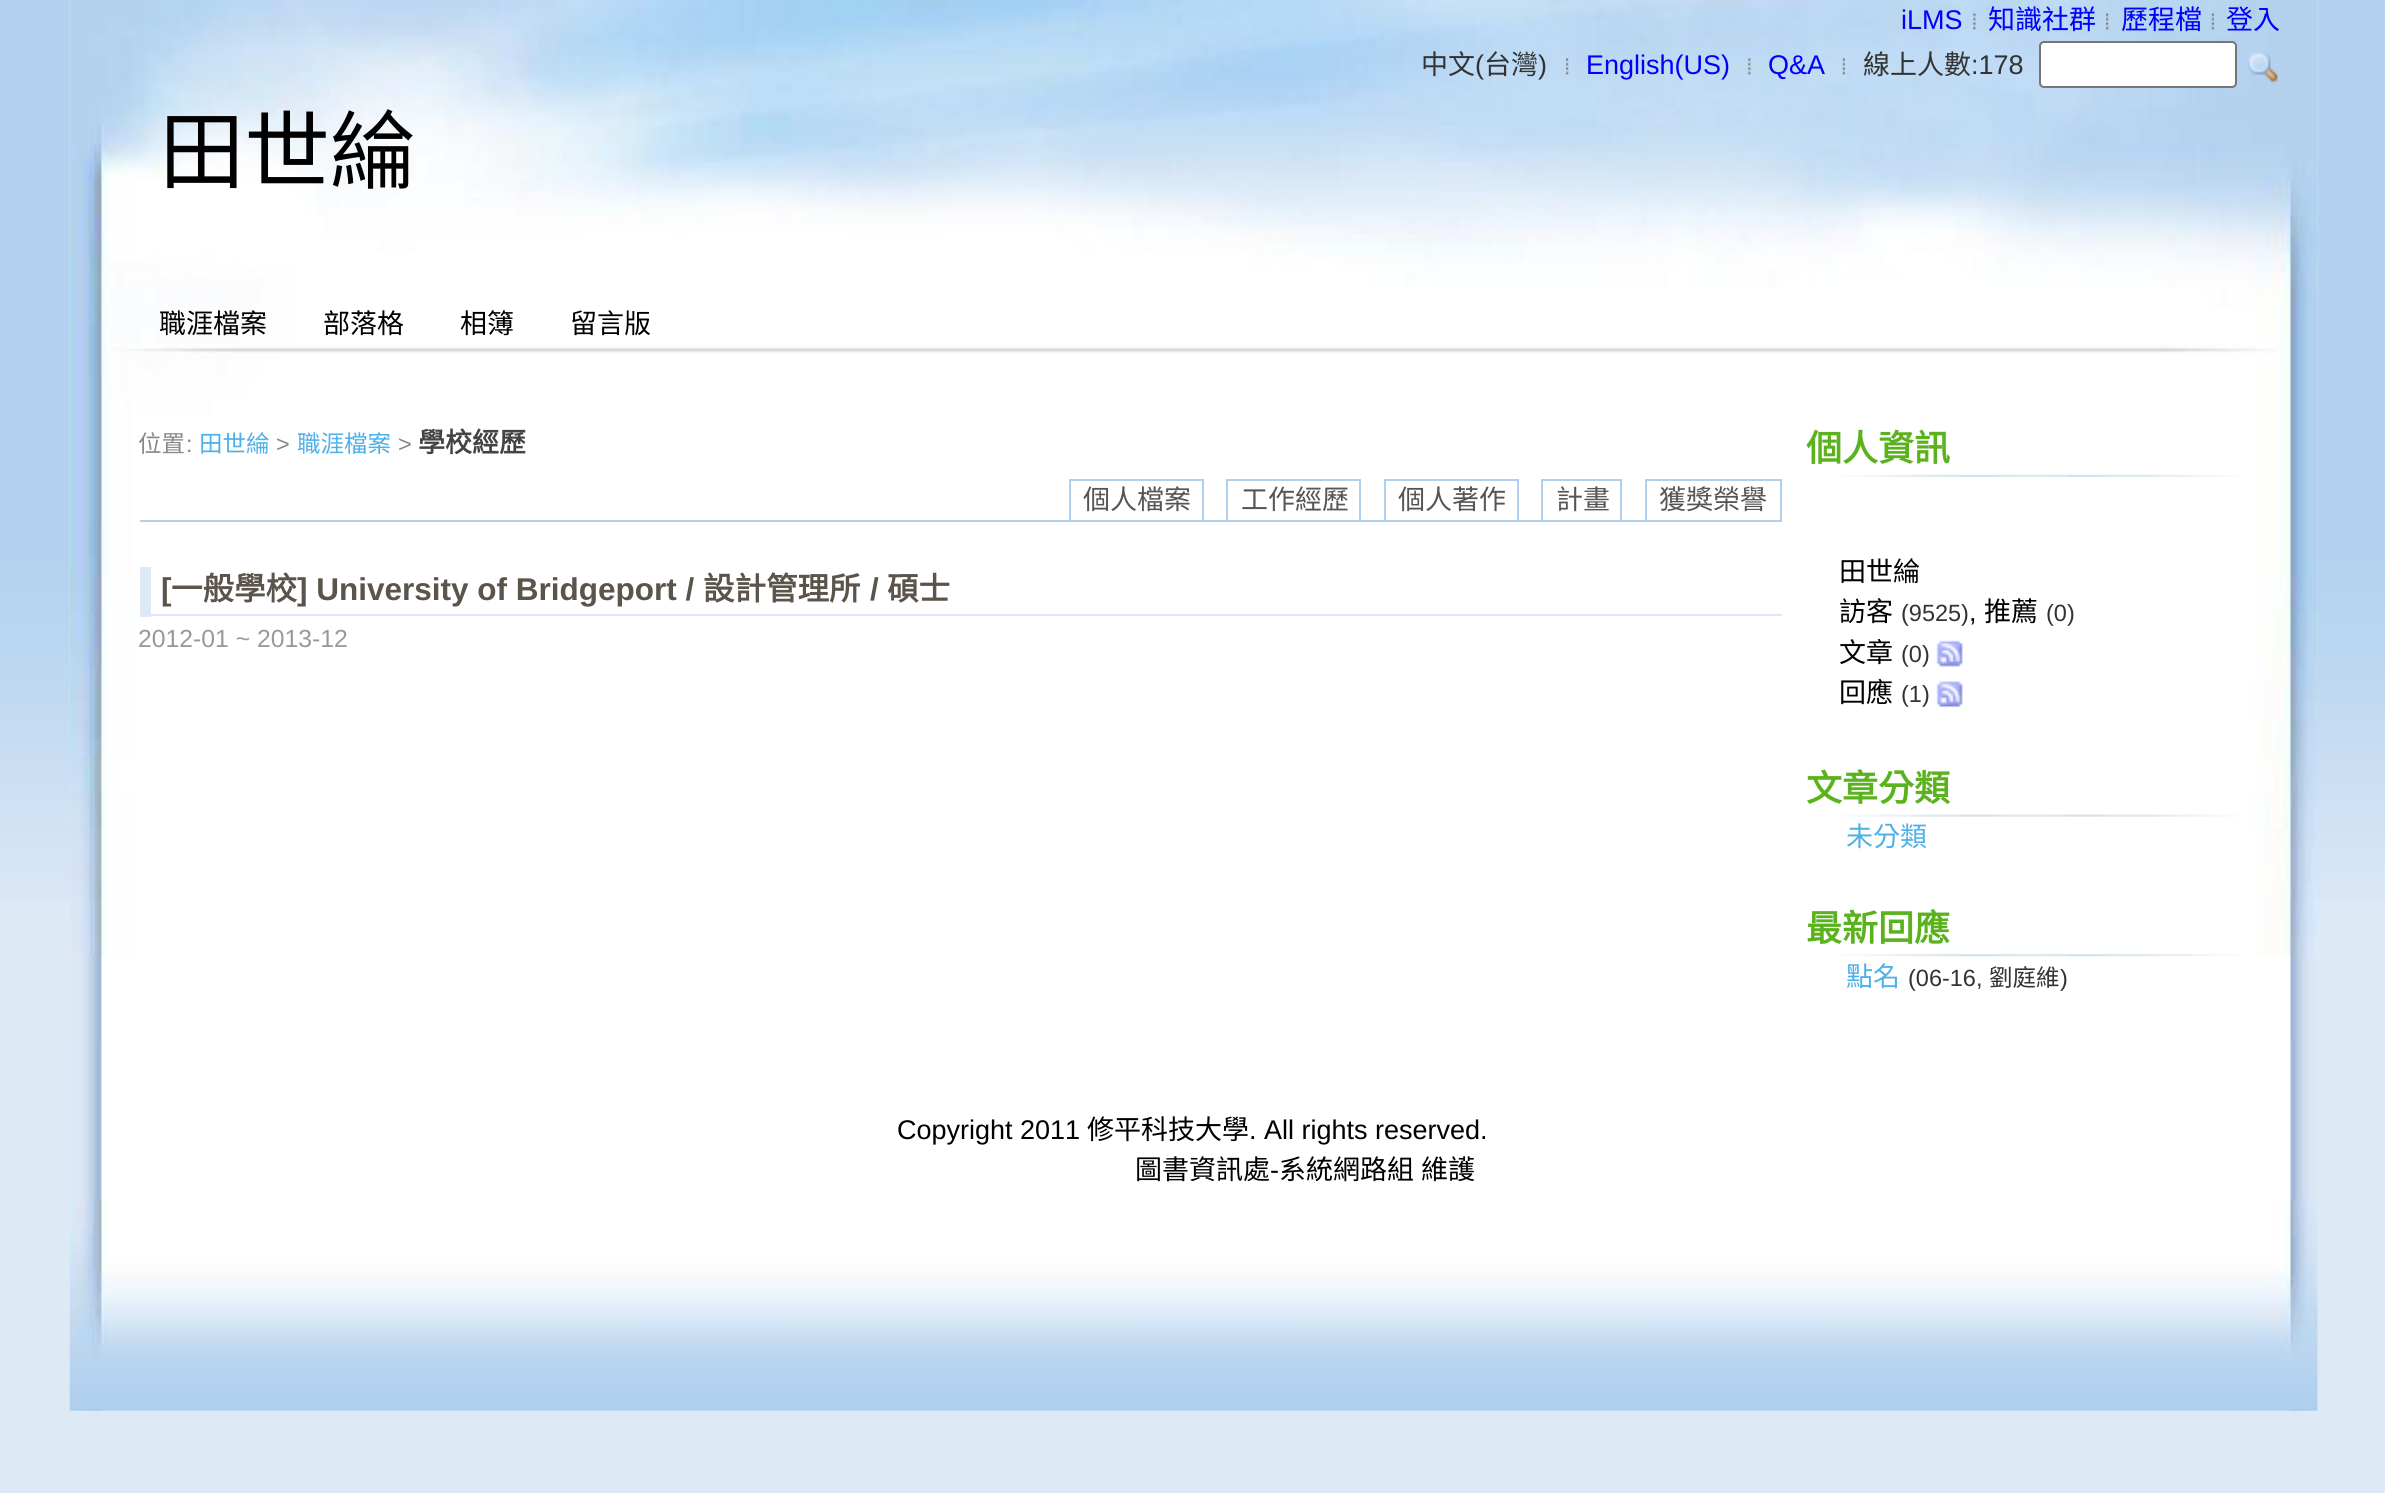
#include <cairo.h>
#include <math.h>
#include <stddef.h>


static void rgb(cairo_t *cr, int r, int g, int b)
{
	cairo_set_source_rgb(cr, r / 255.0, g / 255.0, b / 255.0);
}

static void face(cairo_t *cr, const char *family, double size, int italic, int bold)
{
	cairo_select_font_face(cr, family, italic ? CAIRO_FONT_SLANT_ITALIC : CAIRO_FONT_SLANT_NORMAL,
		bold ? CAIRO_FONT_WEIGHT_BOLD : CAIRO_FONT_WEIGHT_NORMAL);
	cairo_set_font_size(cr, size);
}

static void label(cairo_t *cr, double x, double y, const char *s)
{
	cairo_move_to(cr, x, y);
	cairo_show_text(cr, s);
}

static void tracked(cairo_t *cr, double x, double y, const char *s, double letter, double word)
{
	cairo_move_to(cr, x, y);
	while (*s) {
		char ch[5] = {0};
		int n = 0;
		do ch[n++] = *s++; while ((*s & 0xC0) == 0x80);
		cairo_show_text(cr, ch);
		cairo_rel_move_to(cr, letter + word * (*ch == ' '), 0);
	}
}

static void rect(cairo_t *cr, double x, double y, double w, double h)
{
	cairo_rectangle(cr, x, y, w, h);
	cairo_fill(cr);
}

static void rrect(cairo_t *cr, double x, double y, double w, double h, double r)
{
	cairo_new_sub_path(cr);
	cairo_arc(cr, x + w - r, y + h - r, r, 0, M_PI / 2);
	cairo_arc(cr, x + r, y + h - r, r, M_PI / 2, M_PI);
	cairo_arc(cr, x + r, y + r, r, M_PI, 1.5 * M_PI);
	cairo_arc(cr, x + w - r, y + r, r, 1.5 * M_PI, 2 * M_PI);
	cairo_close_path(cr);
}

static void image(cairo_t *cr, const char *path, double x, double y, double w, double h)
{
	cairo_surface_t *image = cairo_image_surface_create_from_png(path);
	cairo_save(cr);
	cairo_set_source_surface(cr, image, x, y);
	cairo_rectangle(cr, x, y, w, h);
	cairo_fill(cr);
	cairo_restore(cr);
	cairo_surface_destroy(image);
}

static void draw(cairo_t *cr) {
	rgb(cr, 222, 233, 246);
	cairo_paint(cr);
	image(cr, "image0.png", 0, 0, 2385, 901);
	image(cr, "image1.png", 69, 0, 2249, 1411);
	image(cr, "image2.png", 69, 0, 2249, 957);
	face(cr, "Liberation Sans", 27, 0, 0);
	rgb(cr, 0, 0, 255);
	label(cr, 1901, 29, "iLMS");
	image(cr, "image3.png", 1973, 13, 3, 17);
	face(cr, "Noto Sans CJK TC", 27, 0, 0);
	label(cr, 1988, 29, "知識社群");
	image(cr, "image4.png", 2106, 13, 3, 17);
	label(cr, 2121, 29, "歷程檔");
	image(cr, "image5.png", 2211, 13, 3, 17);
	label(cr, 2226, 29, "登入");
	rgb(cr, 51, 51, 51);
	label(cr, 1421, 74, "中文");
	face(cr, "Liberation Sans", 27, 0, 0);
	label(cr, 1475, 74, "(");
	face(cr, "Noto Sans CJK TC", 27, 0, 0);
	label(cr, 1484, 74, "台灣");
	face(cr, "Liberation Sans", 27, 0, 0);
	label(cr, 1538, 74, ")");
	image(cr, "image6.png", 1566, 58, 3, 17);
	rgb(cr, 0, 0, 255);
	label(cr, 1586, 74, "English(US)");
	image(cr, "image7.png", 1748, 58, 3, 17);
	label(cr, 1768, 74, "Q&A");
	image(cr, "image8.png", 1842, 58, 3, 17);
	face(cr, "Noto Sans CJK TC", 27, 0, 0);
	rgb(cr, 51, 51, 51);
	label(cr, 1863, 74, "線上人數");
	face(cr, "Liberation Sans", 27, 0, 0);
	label(cr, 1971, 74, ":178");
	rgb(cr, 255, 255, 255);
	rrect(cr, 2040, 42, 196, 45, 4);
	cairo_fill_preserve(cr);
	rgb(cr, 118, 118, 118);
	cairo_stroke(cr);
	image(cr, "image9.png", 2247, 52, 31, 32);
	face(cr, "Noto Sans CJK TC", 85.5, 0, 0);
	rgb(cr, 0, 0, 0);
	label(cr, 159, 182, "田世綸");
	image(cr, "image10.png", 108, 344, 2168, 11);
	face(cr, "Noto Sans CJK TC", 27, 0, 0);
	label(cr, 159, 333, "職涯檔案");
	label(cr, 323, 333, "部落格");
	label(cr, 460, 333, "相簿");
	label(cr, 570, 333, "留言版");
	face(cr, "Noto Sans CJK TC", 23.5, 0, 0);
	rgb(cr, 136, 136, 136);
	label(cr, 138, 452, "位置");
	face(cr, "Liberation Sans", 23.5, 0, 0);
	label(cr, 186, 452, ":");
	face(cr, "Noto Sans CJK TC", 23.5, 0, 0);
	rgb(cr, 78, 176, 233);
	label(cr, 199, 452, "田世綸");
	face(cr, "Liberation Sans", 23.5, 0, 0);
	rgb(cr, 136, 136, 136);
	label(cr, 276, 452, ">");
	face(cr, "Noto Sans CJK TC", 23.5, 0, 0);
	rgb(cr, 78, 176, 233);
	label(cr, 297, 452, "職涯檔案");
	face(cr, "Liberation Sans", 23.5, 0, 0);
	rgb(cr, 136, 136, 136);
	label(cr, 398, 452, ">");
	face(cr, "Noto Sans CJK TC", 27, 0, 1);
	rgb(cr, 68, 68, 68);
	label(cr, 418, 452, "學校經歷");
	rgb(cr, 177, 208, 237);
	rect(cr, 140, 520, 1642, 2);
	rect(cr, 1069, 479, 135, 2);
	rect(cr, 1202, 479, 2, 41);
	rect(cr, 1069, 479, 2, 41);
	face(cr, "Noto Sans CJK TC", 27, 0, 0);
	rgb(cr, 85, 85, 85);
	label(cr, 1083, 509, "個人檔案");
	rgb(cr, 177, 208, 237);
	rect(cr, 1226, 479, 135, 2);
	rect(cr, 1359, 479, 2, 41);
	rect(cr, 1226, 479, 2, 41);
	rgb(cr, 85, 85, 85);
	label(cr, 1241, 509, "工作經歷");
	rgb(cr, 177, 208, 237);
	rect(cr, 1384, 479, 135, 2);
	rect(cr, 1517, 479, 2, 41);
	rect(cr, 1384, 479, 2, 41);
	rgb(cr, 85, 85, 85);
	label(cr, 1398, 509, "個人著作");
	rgb(cr, 177, 208, 237);
	rect(cr, 1541, 479, 81, 2);
	rect(cr, 1620, 479, 2, 41);
	rect(cr, 1541, 479, 2, 41);
	rgb(cr, 85, 85, 85);
	label(cr, 1556, 509, "計畫");
	rgb(cr, 177, 208, 237);
	rect(cr, 1645, 479, 137, 2);
	rect(cr, 1780, 479, 2, 41);
	rect(cr, 1645, 479, 2, 41);
	rgb(cr, 85, 85, 85);
	label(cr, 1659, 509, "獲獎榮譽");
	rgb(cr, 222, 233, 246);
	rect(cr, 151, 614, 1631, 2);
	rect(cr, 140, 567, 11, 50);
	face(cr, "Liberation Sans", 31.5, 0, 1);
	rgb(cr, 90, 84, 75);
	label(cr, 161, 600, "[");
	face(cr, "Noto Sans CJK TC", 31.5, 0, 1);
	label(cr, 171, 600, "一般學校");
	face(cr, "Liberation Sans", 31.5, 0, 1);
	label(cr, 297, 600, "] University of Bridgeport /");
	face(cr, "Noto Sans CJK TC", 31.5, 0, 1);
	label(cr, 703, 600, "設計管理所");
	face(cr, "Liberation Sans", 31.5, 0, 1);
	label(cr, 870, 600, "/");
	face(cr, "Noto Sans CJK TC", 31.5, 0, 1);
	label(cr, 887, 600, "碩士");
	face(cr, "Liberation Sans", 24.75, 0, 0);
	rgb(cr, 153, 153, 153);
	label(cr, 138, 647, "2012-01 ~ 2013-12");
	image(cr, "image11.png", 1841, 474, 402, 3);
	face(cr, "Noto Sans CJK TC", 36, 0, 1);
	rgb(cr, 90, 178, 29);
	label(cr, 1806, 461, "個人資訊");
	face(cr, "Noto Sans CJK TC", 27, 0, 0);
	rgb(cr, 0, 0, 0);
	label(cr, 1839, 581, "田世綸");
	label(cr, 1839, 621, "訪客");
	face(cr, "Liberation Sans", 23.5, 0, 0);
	rgb(cr, 51, 51, 51);
	label(cr, 1901, 621, "(9525)");
	face(cr, "Liberation Sans", 27, 0, 0);
	rgb(cr, 0, 0, 0);
	label(cr, 1969, 621, ",");
	face(cr, "Noto Sans CJK TC", 27, 0, 0);
	label(cr, 1984, 621, "推薦");
	face(cr, "Liberation Sans", 23.5, 0, 0);
	rgb(cr, 51, 51, 51);
	label(cr, 2046, 621, "(0)");
	face(cr, "Noto Sans CJK TC", 27, 0, 0);
	rgb(cr, 0, 0, 0);
	label(cr, 1839, 662, "文章");
	face(cr, "Liberation Sans", 23.5, 0, 0);
	rgb(cr, 51, 51, 51);
	label(cr, 1901, 662, "(0)");
	image(cr, "image12.png", 1936, 640, 27, 27);
	face(cr, "Noto Sans CJK TC", 27, 0, 0);
	rgb(cr, 0, 0, 0);
	label(cr, 1839, 702, "回應");
	face(cr, "Liberation Sans", 23.5, 0, 0);
	rgb(cr, 51, 51, 51);
	label(cr, 1901, 702, "(1)");
	image(cr, "image13.png", 1936, 681, 27, 27);
	image(cr, "image14.png", 1841, 814, 425, 3);
	face(cr, "Noto Sans CJK TC", 36, 0, 1);
	rgb(cr, 90, 178, 29);
	label(cr, 1806, 801, "文章分類");
	face(cr, "Noto Sans CJK TC", 27, 0, 0);
	rgb(cr, 78, 176, 233);
	label(cr, 1846, 846, "未分類");
	image(cr, "image15.png", 1841, 954, 402, 3);
	face(cr, "Noto Sans CJK TC", 36, 0, 1);
	rgb(cr, 90, 178, 29);
	label(cr, 1806, 941, "最新回應");
	face(cr, "Noto Sans CJK TC", 27, 0, 0);
	rgb(cr, 78, 176, 233);
	label(cr, 1846, 986, "點名");
	face(cr, "Liberation Sans", 23.5, 0, 0);
	rgb(cr, 51, 51, 51);
	label(cr, 1908, 986, "(06-16,");
	face(cr, "Noto Sans CJK TC", 23.5, 0, 0);
	label(cr, 1989, 986, "劉庭維");
	face(cr, "Liberation Sans", 23.5, 0, 0);
	label(cr, 2060, 986, ")");
	image(cr, "image16.png", 69, 1042, 2249, 369);
	face(cr, "Liberation Sans", 27, 0, 0);
	rgb(cr, 0, 0, 0);
	label(cr, 897, 1139, "Copyright 2011");
	face(cr, "Noto Sans CJK TC", 27, 0, 0);
	label(cr, 1087, 1139, "修平科技大學");
	face(cr, "Liberation Sans", 27, 0, 0);
	label(cr, 1249, 1139, ". All rights reserved.");
	face(cr, "Noto Sans CJK TC", 27, 0, 0);
	label(cr, 1135, 1179, "圖書資訊處");
	face(cr, "Liberation Sans", 27, 0, 0);
	label(cr, 1270, 1179, "-");
	face(cr, "Noto Sans CJK TC", 27, 0, 0);
	tracked(cr, 1279, 1179, "系統網路組 維護", 0, 1);
}

int main(void) {
	cairo_surface_t *surface = cairo_image_surface_create(CAIRO_FORMAT_RGB24, 2385, 1493);
	cairo_t *cr = cairo_create(surface);
	cairo_font_options_t *options = cairo_font_options_create();
	cairo_font_options_set_hint_metrics(options, CAIRO_HINT_METRICS_OFF);
	cairo_font_options_set_hint_style(options, CAIRO_HINT_STYLE_NONE);
	cairo_set_font_options(cr, options);
	cairo_set_miter_limit(cr, 4);
	draw(cr);
	cairo_surface_write_to_png(surface, "render.png");
	cairo_font_options_destroy(options);
	cairo_destroy(cr);
	cairo_surface_destroy(surface);
	return 0;
}
